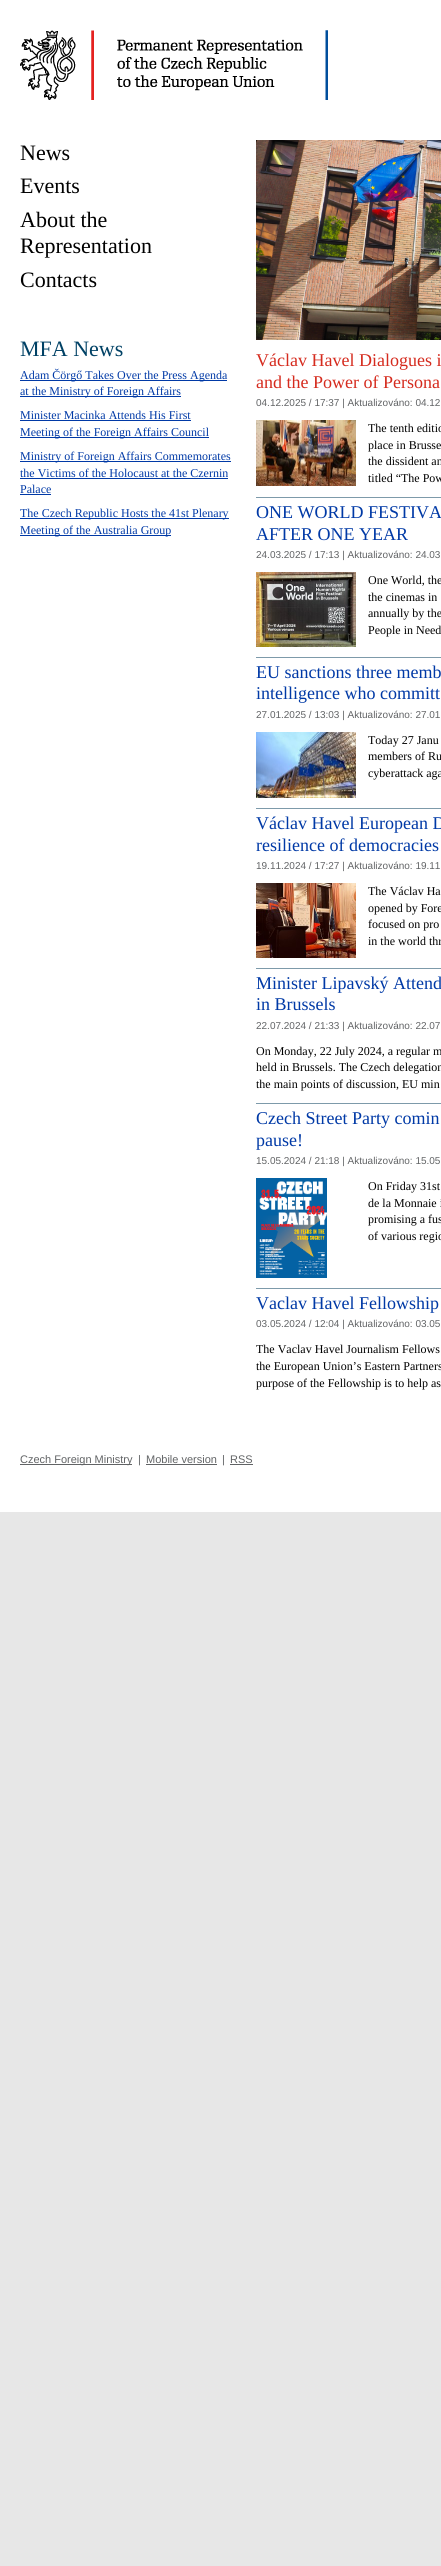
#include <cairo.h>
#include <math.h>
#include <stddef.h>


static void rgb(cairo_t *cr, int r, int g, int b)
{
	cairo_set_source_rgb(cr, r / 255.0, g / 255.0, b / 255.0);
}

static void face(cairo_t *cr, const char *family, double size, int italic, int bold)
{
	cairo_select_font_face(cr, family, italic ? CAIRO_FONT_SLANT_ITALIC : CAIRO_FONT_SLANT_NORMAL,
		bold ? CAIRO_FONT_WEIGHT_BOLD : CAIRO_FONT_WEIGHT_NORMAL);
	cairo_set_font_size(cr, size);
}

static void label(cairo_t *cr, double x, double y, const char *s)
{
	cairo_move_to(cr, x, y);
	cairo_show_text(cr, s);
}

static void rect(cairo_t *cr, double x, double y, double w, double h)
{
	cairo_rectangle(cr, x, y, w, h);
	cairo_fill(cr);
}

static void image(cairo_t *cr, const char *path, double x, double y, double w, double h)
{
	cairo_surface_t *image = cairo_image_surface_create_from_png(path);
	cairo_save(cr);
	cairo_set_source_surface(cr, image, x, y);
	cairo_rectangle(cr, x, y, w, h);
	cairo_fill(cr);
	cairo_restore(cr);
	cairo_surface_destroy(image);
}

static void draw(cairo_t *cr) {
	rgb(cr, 231, 231, 231);
	cairo_paint(cr);
	rgb(cr, 255, 255, 255);
	rect(cr, 0, 0, 441, 1512);
	image(cr, "image0.png", 20, 30, 308, 70);
	face(cr, "Liberation Serif", 22, 0, 0);
	rgb(cr, 0, 0, 0);
	label(cr, 20, 160, "News");
	label(cr, 20, 193, "Events");
	label(cr, 20, 227, "About the");
	label(cr, 20, 253, "Representation");
	label(cr, 20, 287, "Contacts");
	rgb(cr, 0, 65, 101);
	label(cr, 20, 356, "MFA News");
	rgb(cr, 0, 57, 166);
	rect(cr, 20, 380, 207, 1);
	face(cr, "Liberation Serif", 12, 0, 0);
	label(cr, 20, 379, "Adam Čörgő Takes Over the Press Agenda");
	rect(cr, 20, 396, 161, 1);
	label(cr, 20, 395, "at the Ministry of Foreign Affairs");
	label(cr, 20, 419, "Minister Macinka Attends His First");
	rect(cr, 20, 420, 171, 1);
	rect(cr, 20, 437, 189, 1);
	label(cr, 20, 436, "Meeting of the Foreign Affairs Council");
	rect(cr, 20, 461, 211, 1);
	label(cr, 20, 460, "Ministry of Foreign Affairs Commemorates");
	label(cr, 20, 477, "the Victims of the Holocaust at the Czernin");
	rect(cr, 20, 478, 208, 1);
	label(cr, 20, 493, "Palace");
	rect(cr, 20, 494, 31, 1);
	rect(cr, 20, 518, 209, 1);
	label(cr, 20, 517, "The Czech Republic Hosts the 41st Plenary");
	rect(cr, 20, 535, 151, 1);
	label(cr, 20, 534, "Meeting of the Australia Group");
	image(cr, "image1.png", 256, 140, 185, 200);
	face(cr, "Liberation Serif", 18, 0, 0);
	rgb(cr, 213, 43, 30);
	label(cr, 256, 366, "Václav Havel Dialogues i");
	label(cr, 256, 388, "and the Power of Persona");
	face(cr, "Liberation Sans", 10, 0, 0);
	rgb(cr, 97, 99, 101);
	label(cr, 256, 406, "04.12.2025 / 17:37 | Aktualizováno: 04.12");
	image(cr, "image2.png", 256, 420, 100, 66);
	face(cr, "Liberation Serif", 12, 0, 0);
	rgb(cr, 0, 0, 0);
	label(cr, 368, 432, "The tenth editio");
	label(cr, 368, 449, "place in Brusse");
	label(cr, 368, 465, "the dissident an");
	label(cr, 368, 482, "titled “The Pow");
	rgb(cr, 125, 154, 170);
	rect(cr, 256, 497, 185, 1);
	face(cr, "Liberation Serif", 18, 0, 0);
	rgb(cr, 0, 57, 166);
	label(cr, 256, 518, "ONE WORLD FESTIVA");
	label(cr, 256, 540, "AFTER ONE YEAR");
	face(cr, "Liberation Sans", 10, 0, 0);
	rgb(cr, 97, 99, 101);
	label(cr, 256, 558, "24.03.2025 / 17:13 | Aktualizováno: 24.03");
	image(cr, "image3.png", 256, 572, 100, 75);
	face(cr, "Liberation Serif", 12, 0, 0);
	rgb(cr, 0, 0, 0);
	label(cr, 368, 584, "One World, the");
	label(cr, 368, 601, "the cinemas in");
	label(cr, 368, 617, "annually by the");
	label(cr, 368, 634, "People in Need");
	rgb(cr, 125, 154, 170);
	rect(cr, 256, 657, 185, 1);
	face(cr, "Liberation Serif", 18, 0, 0);
	rgb(cr, 0, 57, 166);
	label(cr, 256, 678, "EU sanctions three memb");
	label(cr, 256, 699, "intelligence who committ");
	face(cr, "Liberation Sans", 10, 0, 0);
	rgb(cr, 97, 99, 101);
	label(cr, 256, 718, "27.01.2025 / 13:03 | Aktualizováno: 27.01");
	image(cr, "image4.png", 256, 732, 100, 66);
	face(cr, "Liberation Serif", 12, 0, 0);
	rgb(cr, 0, 0, 0);
	label(cr, 368, 744, "Today 27 Janu");
	label(cr, 368, 760, "members of Ru");
	label(cr, 368, 777, "cyberattack aga");
	rgb(cr, 125, 154, 170);
	rect(cr, 256, 808, 185, 1);
	face(cr, "Liberation Serif", 18, 0, 0);
	rgb(cr, 0, 57, 166);
	label(cr, 256, 829, "Václav Havel European D");
	label(cr, 256, 851, "resilience of democracies");
	face(cr, "Liberation Sans", 10, 0, 0);
	rgb(cr, 97, 99, 101);
	label(cr, 256, 869, "19.11.2024 / 17:27 | Aktualizováno: 19.11");
	image(cr, "image5.png", 256, 883, 100, 75);
	face(cr, "Liberation Serif", 12, 0, 0);
	rgb(cr, 0, 0, 0);
	label(cr, 368, 895, "The Václav Ha");
	label(cr, 368, 912, "opened by Fore");
	label(cr, 368, 928, "focused on pro");
	label(cr, 368, 945, "in the world thr");
	rgb(cr, 125, 154, 170);
	rect(cr, 256, 968, 185, 1);
	face(cr, "Liberation Serif", 18, 0, 0);
	rgb(cr, 0, 57, 166);
	label(cr, 256, 989, "Minister Lipavský Attend");
	label(cr, 256, 1010, "in Brussels");
	face(cr, "Liberation Sans", 10, 0, 0);
	rgb(cr, 97, 99, 101);
	label(cr, 256, 1029, "22.07.2024 / 21:33 | Aktualizováno: 22.07");
	face(cr, "Liberation Serif", 12, 0, 0);
	rgb(cr, 0, 0, 0);
	label(cr, 256, 1055, "On Monday, 22 July 2024, a regular m");
	label(cr, 256, 1071, "held in Brussels. The Czech delegation");
	label(cr, 256, 1088, "the main points of discussion, EU min");
	rgb(cr, 125, 154, 170);
	rect(cr, 256, 1103, 185, 1);
	face(cr, "Liberation Serif", 18, 0, 0);
	rgb(cr, 0, 57, 166);
	label(cr, 256, 1124, "Czech Street Party comin");
	label(cr, 256, 1146, "pause!");
	face(cr, "Liberation Sans", 10, 0, 0);
	rgb(cr, 97, 99, 101);
	label(cr, 256, 1164, "15.05.2024 / 21:18 | Aktualizováno: 15.05");
	image(cr, "image6.png", 256, 1178, 71, 100);
	face(cr, "Liberation Serif", 12, 0, 0);
	rgb(cr, 0, 0, 0);
	label(cr, 368, 1190, "On Friday 31st");
	label(cr, 368, 1207, "de la Monnaie i");
	label(cr, 368, 1223, "promising a fus");
	label(cr, 368, 1240, "of various regio");
	rgb(cr, 125, 154, 170);
	rect(cr, 256, 1288, 185, 1);
	face(cr, "Liberation Serif", 18, 0, 0);
	rgb(cr, 0, 57, 166);
	label(cr, 256, 1309, "Vaclav Havel Fellowship");
	face(cr, "Liberation Sans", 10, 0, 0);
	rgb(cr, 97, 99, 101);
	label(cr, 256, 1327, "03.05.2024 / 12:04 | Aktualizováno: 03.05");
	face(cr, "Liberation Serif", 12, 0, 0);
	rgb(cr, 0, 0, 0);
	label(cr, 256, 1353, "The Vaclav Havel Journalism Fellows");
	label(cr, 256, 1370, "the European Union’s Eastern Partners");
	label(cr, 256, 1387, "purpose of the Fellowship is to help as");
	rgb(cr, 97, 99, 101);
	rect(cr, 20, 1464, 112, 1);
	face(cr, "Liberation Sans", 11, 0, 0);
	label(cr, 20, 1463, "Czech Foreign Ministry");
	label(cr, 138, 1463, "|");
	label(cr, 146, 1463, "Mobile version");
	rect(cr, 146, 1464, 71, 1);
	label(cr, 222, 1463, "|");
	label(cr, 230, 1463, "RSS");
	rect(cr, 230, 1464, 23, 1);
}

int main(void) {
	cairo_surface_t *surface = cairo_image_surface_create(CAIRO_FORMAT_RGB24, 441, 2566);
	cairo_t *cr = cairo_create(surface);
	cairo_font_options_t *options = cairo_font_options_create();
	cairo_font_options_set_hint_metrics(options, CAIRO_HINT_METRICS_OFF);
	cairo_font_options_set_hint_style(options, CAIRO_HINT_STYLE_NONE);
	cairo_set_font_options(cr, options);
	cairo_set_miter_limit(cr, 4);
	draw(cr);
	cairo_surface_write_to_png(surface, "render.png");
	cairo_font_options_destroy(options);
	cairo_destroy(cr);
	cairo_surface_destroy(surface);
	return 0;
}
